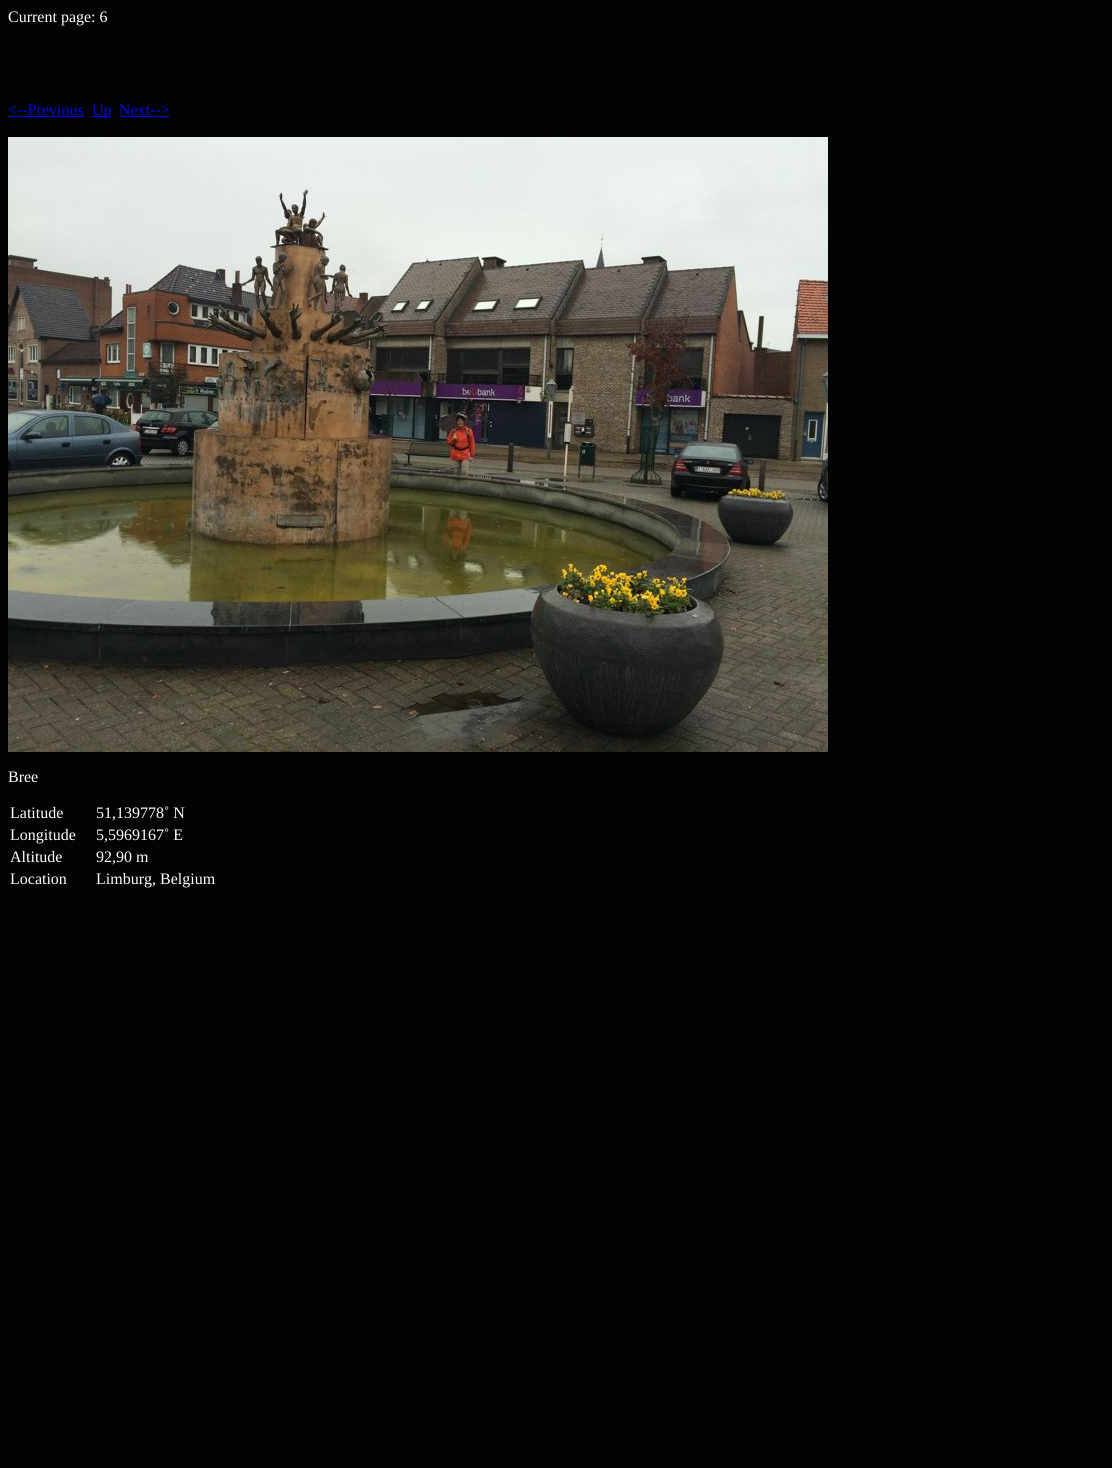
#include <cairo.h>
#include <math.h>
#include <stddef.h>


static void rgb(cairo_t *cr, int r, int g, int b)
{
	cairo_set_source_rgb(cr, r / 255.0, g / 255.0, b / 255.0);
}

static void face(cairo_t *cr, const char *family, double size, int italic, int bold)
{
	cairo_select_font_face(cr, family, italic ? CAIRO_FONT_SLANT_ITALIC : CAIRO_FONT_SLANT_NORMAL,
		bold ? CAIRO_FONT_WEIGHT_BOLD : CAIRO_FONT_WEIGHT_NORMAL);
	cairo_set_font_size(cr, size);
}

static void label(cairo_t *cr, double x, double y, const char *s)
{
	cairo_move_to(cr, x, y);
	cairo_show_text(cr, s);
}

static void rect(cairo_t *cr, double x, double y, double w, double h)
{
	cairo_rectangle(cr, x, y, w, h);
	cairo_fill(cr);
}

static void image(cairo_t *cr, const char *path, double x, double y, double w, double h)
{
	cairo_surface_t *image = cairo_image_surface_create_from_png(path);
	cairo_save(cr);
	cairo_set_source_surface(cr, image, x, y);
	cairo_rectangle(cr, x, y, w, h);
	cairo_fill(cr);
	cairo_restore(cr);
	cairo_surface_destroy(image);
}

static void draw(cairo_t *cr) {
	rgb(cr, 3, 3, 3);
	cairo_paint(cr);
	face(cr, "Liberation Serif", 16, 0, 0);
	rgb(cr, 255, 255, 255);
	label(cr, 8, 22, "Current page: 6");
	rgb(cr, 0, 0, 238);
	label(cr, 8, 115, "<--Previous");
	rect(cr, 8, 116, 76, 1);
	rect(cr, 92, 116, 19, 1);
	label(cr, 92, 115, "Up");
	label(cr, 119, 115, "Next-->");
	rect(cr, 119, 116, 51, 1);
	image(cr, "image0.png", 8, 137, 820, 615);
	rgb(cr, 255, 255, 255);
	label(cr, 8, 782, "Bree");
	label(cr, 10, 818, "Latitude");
	label(cr, 96, 818, "51,139778˚ N");
	label(cr, 10, 840, "Longitude");
	label(cr, 96, 840, "5,5969167˚ E");
	label(cr, 10, 862, "Altitude");
	label(cr, 96, 862, "92,90 m");
	label(cr, 10, 884, "Location");
	label(cr, 96, 884, "Limburg, Belgium");
}

int main(void) {
	cairo_surface_t *surface = cairo_image_surface_create(CAIRO_FORMAT_RGB24, 1112, 1468);
	cairo_t *cr = cairo_create(surface);
	cairo_font_options_t *options = cairo_font_options_create();
	cairo_font_options_set_hint_metrics(options, CAIRO_HINT_METRICS_OFF);
	cairo_font_options_set_hint_style(options, CAIRO_HINT_STYLE_NONE);
	cairo_set_font_options(cr, options);
	cairo_set_miter_limit(cr, 4);
	draw(cr);
	cairo_surface_write_to_png(surface, "render.png");
	cairo_font_options_destroy(options);
	cairo_destroy(cr);
	cairo_surface_destroy(surface);
	return 0;
}
